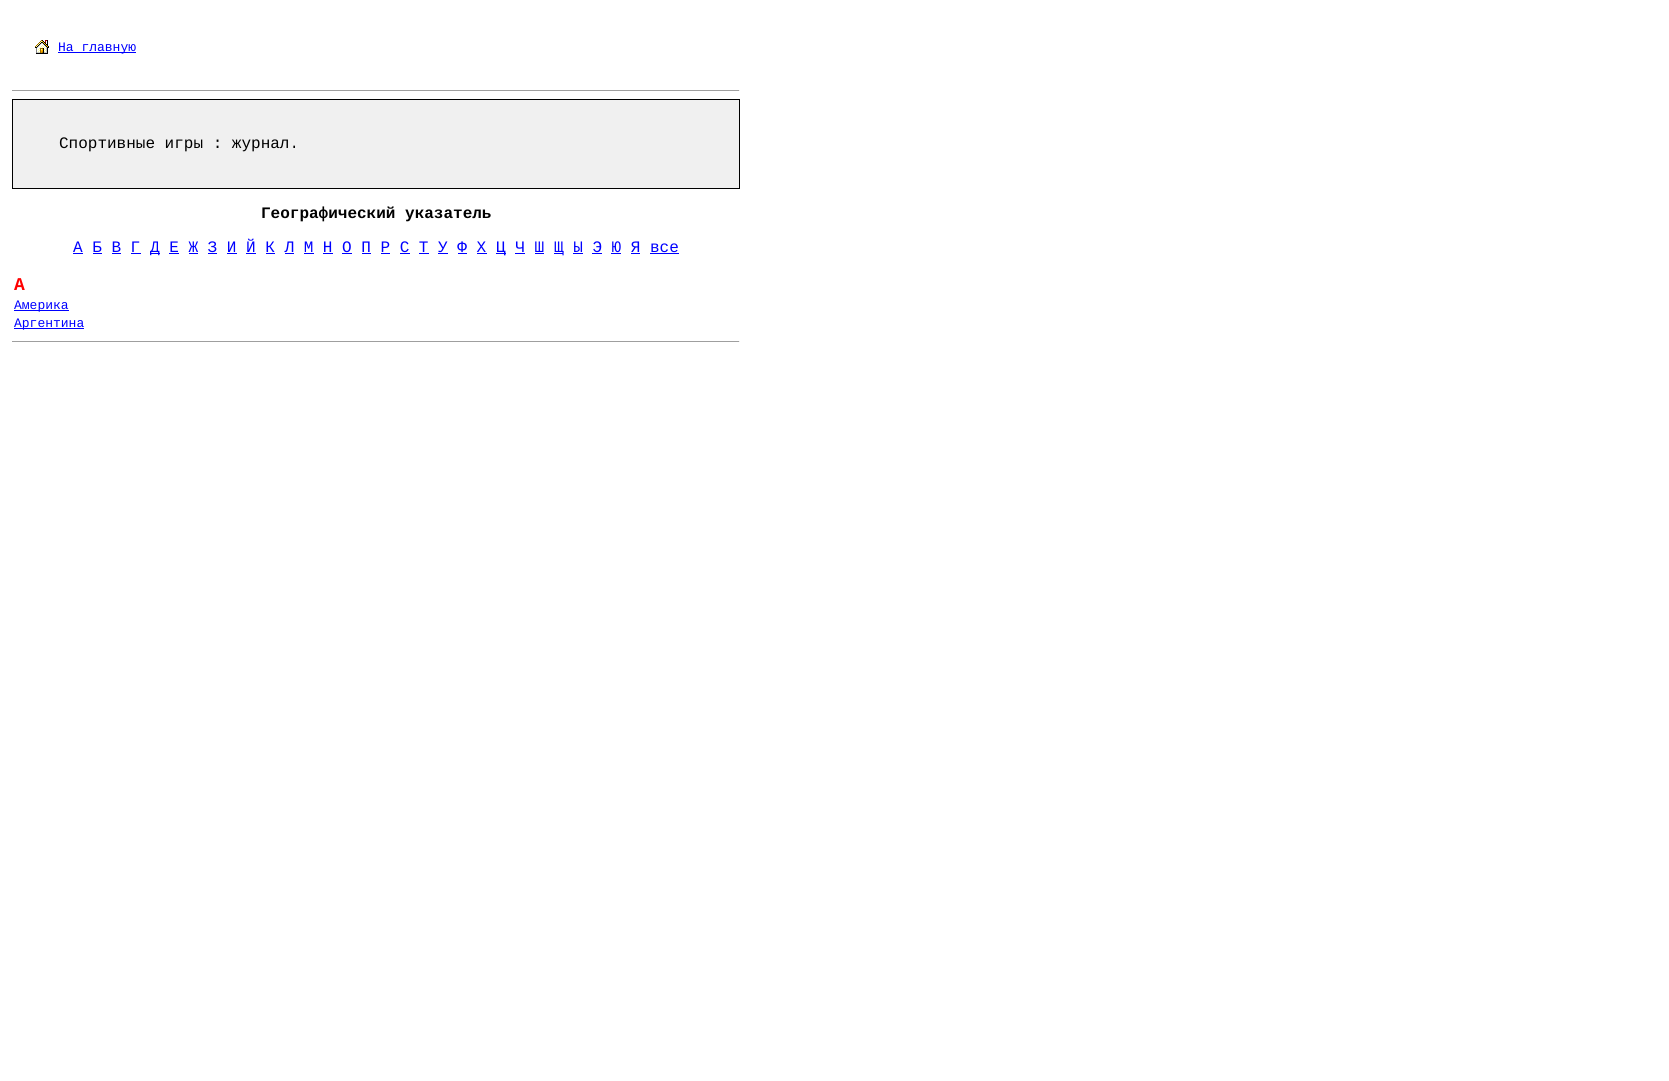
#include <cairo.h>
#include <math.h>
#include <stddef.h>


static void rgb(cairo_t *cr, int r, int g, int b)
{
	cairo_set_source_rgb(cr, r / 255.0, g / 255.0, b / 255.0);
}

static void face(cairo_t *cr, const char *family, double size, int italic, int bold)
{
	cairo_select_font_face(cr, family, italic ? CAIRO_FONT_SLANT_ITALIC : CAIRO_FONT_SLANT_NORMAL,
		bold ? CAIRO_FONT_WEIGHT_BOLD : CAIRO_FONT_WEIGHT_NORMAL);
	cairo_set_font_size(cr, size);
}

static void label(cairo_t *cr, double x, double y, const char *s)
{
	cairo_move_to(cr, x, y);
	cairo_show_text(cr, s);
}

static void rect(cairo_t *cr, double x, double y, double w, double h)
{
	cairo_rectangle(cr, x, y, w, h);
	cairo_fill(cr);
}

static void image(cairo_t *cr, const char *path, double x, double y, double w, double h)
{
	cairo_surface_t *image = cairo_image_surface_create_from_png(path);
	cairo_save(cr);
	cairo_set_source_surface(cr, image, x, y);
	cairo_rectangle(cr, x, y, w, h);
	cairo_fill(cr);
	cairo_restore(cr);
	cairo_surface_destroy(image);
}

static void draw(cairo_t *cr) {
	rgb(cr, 255, 255, 255);
	cairo_paint(cr);
	image(cr, "image0.png", 35, 40, 14, 14);
	rgb(cr, 0, 0, 255);
	rect(cr, 58, 52, 78, 1);
	face(cr, "Liberation Mono", 13, 0, 0);
	label(cr, 58, 51, "На главную");
	rgb(cr, 159, 159, 159);
	rect(cr, 12, 90, 728, 1);
	rgb(cr, 238, 238, 238);
	rect(cr, 739, 90, 1, 1);
	rgb(cr, 240, 240, 240);
	rect(cr, 13, 100, 726, 88);
	rgb(cr, 0, 0, 0);
	rect(cr, 12, 99, 728, 1);
	rect(cr, 739, 99, 1, 90);
	rect(cr, 12, 188, 728, 1);
	rect(cr, 12, 99, 1, 90);
	face(cr, "Liberation Mono", 16, 0, 0);
	label(cr, 59, 148, "Спортивные игры : журнал.");
	face(cr, "Liberation Mono", 16, 0, 1);
	label(cr, 261, 218, "Географический указатель");
	face(cr, "Liberation Mono", 16, 0, 0);
	rgb(cr, 0, 0, 255);
	label(cr, 73, 252, "А Б В Г");
	rect(cr, 73, 253, 10, 1);
	rect(cr, 150, 253, 10, 1);
	label(cr, 150, 252, "Д Е Ж З И Й К Л М Н О П Р С Т У Ф Х");
	rect(cr, 496, 253, 10, 1);
	label(cr, 496, 252, "Ц Ч Ш");
	rect(cr, 554, 253, 9, 1);
	label(cr, 554, 252, "Щ Ы Э Ю Я все");
	rect(cr, 93, 253, 9, 1);
	rect(cr, 112, 253, 9, 1);
	rect(cr, 131, 253, 10, 1);
	rect(cr, 169, 253, 10, 1);
	rect(cr, 189, 253, 9, 1);
	rect(cr, 208, 253, 9, 1);
	rect(cr, 227, 253, 10, 1);
	rect(cr, 246, 253, 10, 1);
	rect(cr, 266, 253, 9, 1);
	rect(cr, 285, 253, 9, 1);
	rect(cr, 304, 253, 10, 1);
	rect(cr, 323, 253, 10, 1);
	rect(cr, 342, 253, 10, 1);
	rect(cr, 362, 253, 9, 1);
	rect(cr, 381, 253, 9, 1);
	rect(cr, 400, 253, 10, 1);
	rect(cr, 419, 253, 10, 1);
	rect(cr, 438, 253, 10, 1);
	rect(cr, 458, 253, 9, 1);
	rect(cr, 477, 253, 10, 1);
	rect(cr, 515, 253, 10, 1);
	rect(cr, 535, 253, 9, 1);
	rect(cr, 573, 253, 10, 1);
	rect(cr, 592, 253, 10, 1);
	rect(cr, 611, 253, 10, 1);
	rect(cr, 631, 253, 9, 1);
	rect(cr, 650, 253, 29, 1);
	face(cr, "Liberation Mono", 18, 0, 1);
	rgb(cr, 255, 0, 0);
	label(cr, 14, 290, "А");
	rgb(cr, 0, 0, 255);
	rect(cr, 14, 310, 55, 1);
	face(cr, "Liberation Mono", 13, 0, 0);
	label(cr, 14, 309, "Америка");
	rect(cr, 14, 328, 70, 1);
	label(cr, 14, 327, "Аргентина");
	rgb(cr, 159, 159, 159);
	rect(cr, 12, 341, 728, 1);
	rgb(cr, 238, 238, 238);
	rect(cr, 739, 341, 1, 1);
}

int main(void) {
	cairo_surface_t *surface = cairo_image_surface_create(CAIRO_FORMAT_RGB24, 1669, 1081);
	cairo_t *cr = cairo_create(surface);
	cairo_font_options_t *options = cairo_font_options_create();
	cairo_font_options_set_hint_metrics(options, CAIRO_HINT_METRICS_OFF);
	cairo_font_options_set_hint_style(options, CAIRO_HINT_STYLE_NONE);
	cairo_set_font_options(cr, options);
	cairo_set_miter_limit(cr, 4);
	draw(cr);
	cairo_surface_write_to_png(surface, "render.png");
	cairo_font_options_destroy(options);
	cairo_destroy(cr);
	cairo_surface_destroy(surface);
	return 0;
}
